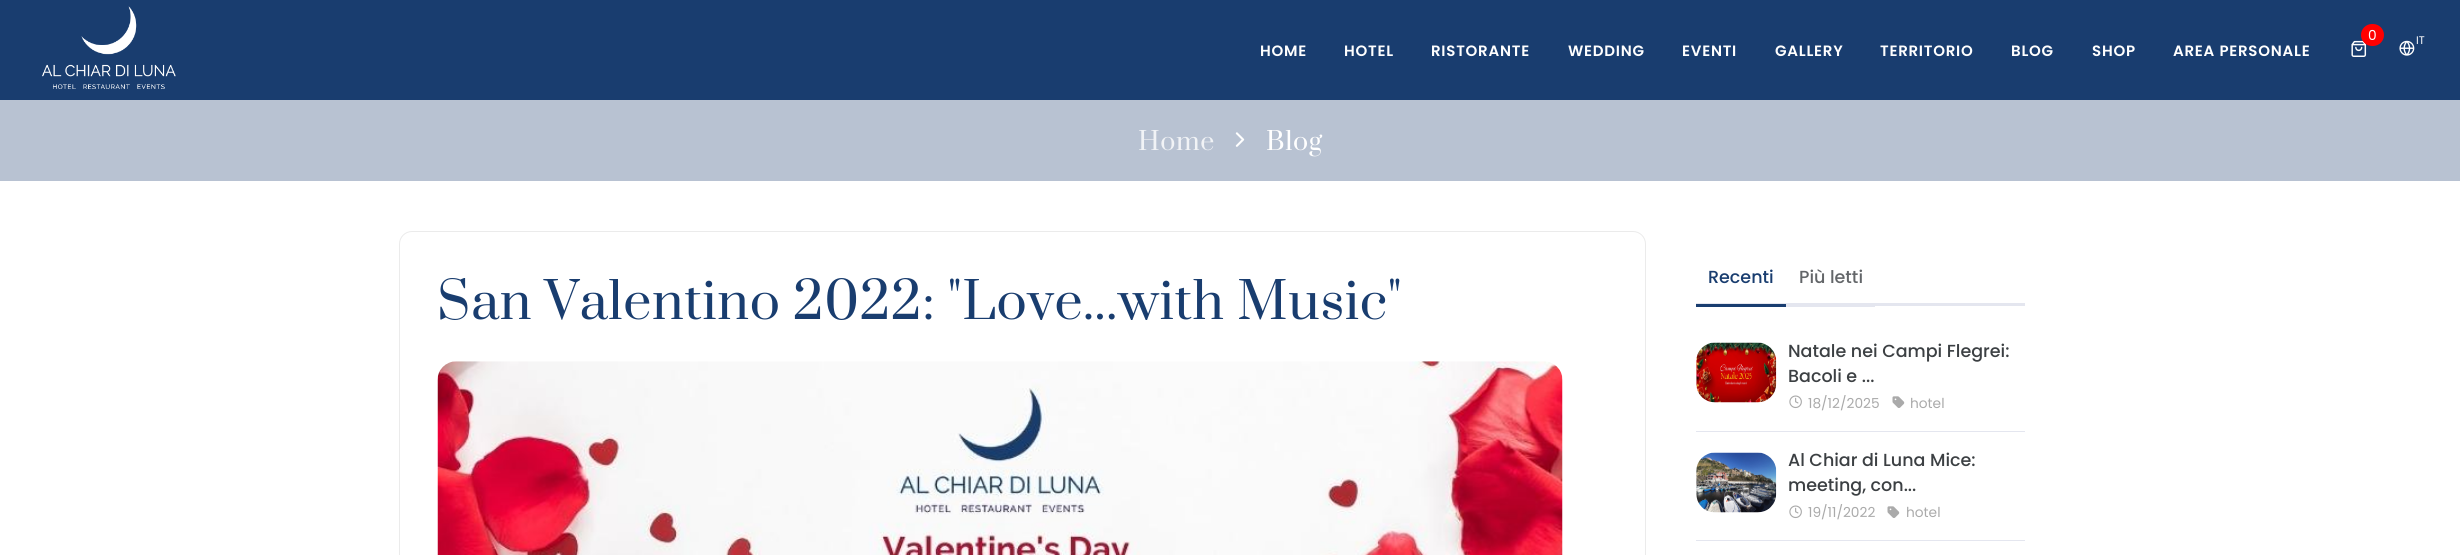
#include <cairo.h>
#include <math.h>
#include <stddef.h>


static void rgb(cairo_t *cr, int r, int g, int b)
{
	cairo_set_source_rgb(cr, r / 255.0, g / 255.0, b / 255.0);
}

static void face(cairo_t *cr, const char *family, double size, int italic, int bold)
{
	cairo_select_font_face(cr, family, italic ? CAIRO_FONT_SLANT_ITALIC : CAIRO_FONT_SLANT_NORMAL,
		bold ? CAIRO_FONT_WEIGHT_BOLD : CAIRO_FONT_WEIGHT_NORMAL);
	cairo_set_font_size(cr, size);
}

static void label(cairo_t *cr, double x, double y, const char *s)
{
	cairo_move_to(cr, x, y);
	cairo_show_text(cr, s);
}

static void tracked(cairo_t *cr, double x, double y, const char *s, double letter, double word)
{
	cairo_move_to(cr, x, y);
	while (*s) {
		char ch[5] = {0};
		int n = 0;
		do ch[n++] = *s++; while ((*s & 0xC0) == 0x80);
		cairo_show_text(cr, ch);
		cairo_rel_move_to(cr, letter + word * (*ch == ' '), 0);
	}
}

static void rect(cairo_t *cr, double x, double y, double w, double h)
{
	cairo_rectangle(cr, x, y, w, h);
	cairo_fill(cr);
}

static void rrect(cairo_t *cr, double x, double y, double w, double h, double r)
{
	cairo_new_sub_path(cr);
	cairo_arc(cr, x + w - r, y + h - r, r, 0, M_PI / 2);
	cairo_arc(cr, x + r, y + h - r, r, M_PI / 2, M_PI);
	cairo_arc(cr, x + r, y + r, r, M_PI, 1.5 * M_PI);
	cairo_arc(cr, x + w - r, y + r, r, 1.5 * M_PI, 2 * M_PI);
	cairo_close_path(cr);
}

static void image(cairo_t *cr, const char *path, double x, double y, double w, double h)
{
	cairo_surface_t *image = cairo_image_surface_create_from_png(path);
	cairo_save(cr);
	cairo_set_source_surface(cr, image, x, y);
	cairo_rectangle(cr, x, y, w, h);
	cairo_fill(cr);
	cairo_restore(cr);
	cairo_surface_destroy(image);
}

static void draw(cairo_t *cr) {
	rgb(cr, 255, 255, 255);
	cairo_paint(cr);
	rgb(cr, 25, 61, 111);
	rect(cr, 0, 0, 2460, 100);
	image(cr, "image0.png", 42, 6, 134, 83);
	image(cr, "image1.png", 2351, 40, 16, 17);
	rgb(cr, 255, 0, 0);
	rrect(cr, 2361, 24, 23, 22, 11);
	cairo_fill(cr);
	face(cr, "Poppins", 13.75, 0, 0);
	rgb(cr, 255, 255, 255);
	label(cr, 2368, 40, "0");
	face(cr, "Poppins SemiBold", 15, 0, 0);
	tracked(cr, 1260, 56, "HOME", 0.75, 0);
	tracked(cr, 1344, 56, "HOTEL", 0.75, 0);
	tracked(cr, 1431, 56, "RISTORANTE", 0.75, 0);
	tracked(cr, 1568, 56, "WEDDING", 0.75, 0);
	tracked(cr, 1682, 56, "EVENTI", 0.75, 0);
	tracked(cr, 1775, 56, "GALLERY", 0.75, 0);
	tracked(cr, 1880, 56, "TERRITORIO", 0.75, 0);
	tracked(cr, 2011, 56, "BLOG", 0.75, 0);
	tracked(cr, 2092, 56, "SHOP", 0.75, 0);
	tracked(cr, 2173, 56, "AREA PERSONALE", 0.75, 0);
	image(cr, "image2.png", 2399, 40, 16, 16);
	face(cr, "Poppins", 11, 0, 0);
	label(cr, 2416, 44, "IT");
	rgb(cr, 184, 194, 210);
	rect(cr, 0, 100, 2460, 81);
	face(cr, "Prata", 25, 0, 0);
	rgb(cr, 241, 243, 246);
	tracked(cr, 1138, 150, "Home", 0.6, 0);
	image(cr, "image3.png", 1235, 132, 10, 15);
	rgb(cr, 255, 255, 255);
	tracked(cr, 1266, 150, "Blog", 0.6, 0);
	rrect(cr, 399.5, 231.5, 1246, 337, 12.5);
	rgb(cr, 235, 235, 235);
	cairo_set_line_width(cr, 1);
	cairo_stroke(cr);
	face(cr, "Prata", 50, 0, 0);
	rgb(cr, 25, 61, 111);
	tracked(cr, 437, 319, "San Valentino 2022: \"Love...with Music\"", 0.6, 0);
	image(cr, "image4.png", 437, 361, 1126, 194);
	rgb(cr, 228, 230, 239);
	rect(cr, 1696, 303, 329, 3);
	rgb(cr, 25, 61, 112);
	rect(cr, 1696, 304, 90, 3);
	face(cr, "Poppins Medium", 17.5, 0, 0);
	rgb(cr, 25, 61, 111);
	label(cr, 1708, 283, "Recenti");
	rgb(cr, 228, 230, 239);
	rect(cr, 1786, 306, 89, 1);
	rgb(cr, 99, 102, 105);
	label(cr, 1799, 283, "Più letti");
	rgb(cr, 228, 230, 239);
	rect(cr, 1696, 431, 329, 1);
	image(cr, "image5.png", 1696, 342, 81, 61);
	rgb(cr, 60, 64, 67);
	label(cr, 1788, 357, "Natale nei Campi Flegrei:");
	label(cr, 1788, 382, "Bacoli e ...");
	image(cr, "image6.png", 1789, 395, 13, 14);
	face(cr, "Poppins", 13.75, 0, 0);
	rgb(cr, 170, 170, 170);
	label(cr, 1808, 408, "18/12/2025");
	image(cr, "image7.png", 1892, 396, 13, 12);
	label(cr, 1910, 408, "hotel");
	rgb(cr, 228, 230, 239);
	rect(cr, 1696, 540, 329, 1);
	image(cr, "image8.png", 1696, 452, 81, 61);
	face(cr, "Poppins Medium", 17.5, 0, 0);
	rgb(cr, 60, 64, 67);
	label(cr, 1788, 466, "Al Chiar di Luna Mice:");
	label(cr, 1788, 491, "meeting, con...");
	image(cr, "image6.png", 1789, 505, 13, 14);
	face(cr, "Poppins", 13.75, 0, 0);
	rgb(cr, 170, 170, 170);
	label(cr, 1808, 517, "19/11/2022");
	image(cr, "image7.png", 1887, 506, 13, 12);
	label(cr, 1906, 517, "hotel");
}

int main(void) {
	cairo_surface_t *surface = cairo_image_surface_create(CAIRO_FORMAT_RGB24, 2460, 555);
	cairo_t *cr = cairo_create(surface);
	cairo_font_options_t *options = cairo_font_options_create();
	cairo_font_options_set_hint_metrics(options, CAIRO_HINT_METRICS_OFF);
	cairo_font_options_set_hint_style(options, CAIRO_HINT_STYLE_NONE);
	cairo_set_font_options(cr, options);
	cairo_set_miter_limit(cr, 4);
	draw(cr);
	cairo_surface_write_to_png(surface, "render.png");
	cairo_font_options_destroy(options);
	cairo_destroy(cr);
	cairo_surface_destroy(surface);
	return 0;
}
